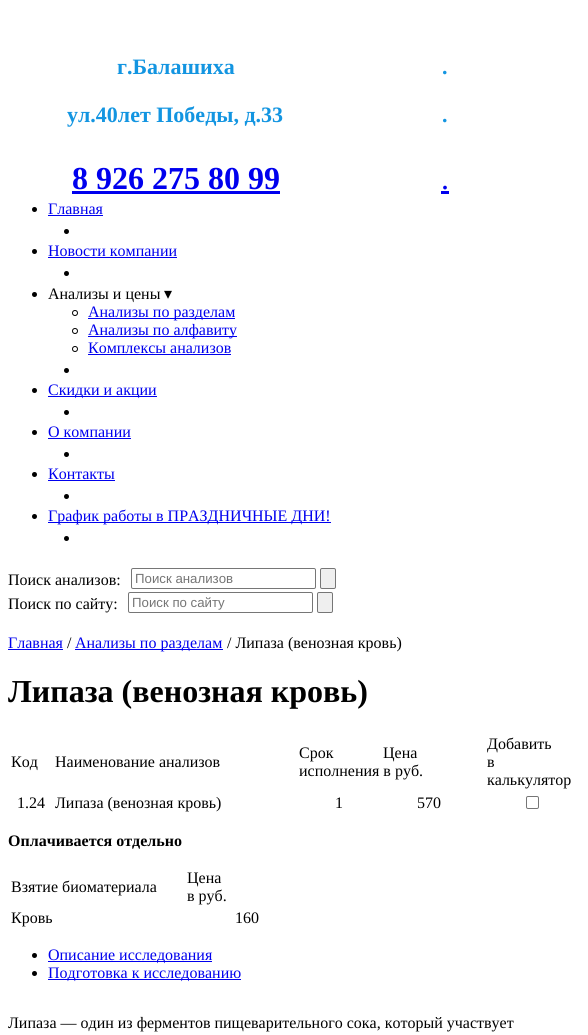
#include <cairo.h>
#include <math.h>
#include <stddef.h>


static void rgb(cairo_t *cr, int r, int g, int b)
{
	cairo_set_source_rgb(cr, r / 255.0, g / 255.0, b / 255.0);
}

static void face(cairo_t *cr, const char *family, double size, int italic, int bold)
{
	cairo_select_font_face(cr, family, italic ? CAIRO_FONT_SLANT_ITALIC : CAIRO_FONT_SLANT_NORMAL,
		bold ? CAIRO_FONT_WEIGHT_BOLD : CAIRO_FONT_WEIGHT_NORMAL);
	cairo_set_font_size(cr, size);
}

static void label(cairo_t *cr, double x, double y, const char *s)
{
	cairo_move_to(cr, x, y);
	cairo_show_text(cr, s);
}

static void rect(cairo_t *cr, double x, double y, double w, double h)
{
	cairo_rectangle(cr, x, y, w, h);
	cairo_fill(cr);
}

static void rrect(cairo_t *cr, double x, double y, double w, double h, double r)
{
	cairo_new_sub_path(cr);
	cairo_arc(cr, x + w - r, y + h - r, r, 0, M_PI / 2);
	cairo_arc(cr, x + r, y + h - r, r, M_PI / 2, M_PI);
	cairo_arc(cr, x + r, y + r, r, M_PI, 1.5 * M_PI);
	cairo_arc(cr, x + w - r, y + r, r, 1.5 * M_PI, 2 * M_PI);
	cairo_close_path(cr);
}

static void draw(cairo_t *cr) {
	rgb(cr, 255, 255, 255);
	cairo_paint(cr);
	face(cr, "Liberation Serif", 22, 0, 1);
	rgb(cr, 19, 149, 225);
	label(cr, 117, 74, "г.Балашиха");
	label(cr, 67, 122, "ул.40лет Победы, д.33");
	face(cr, "Liberation Serif", 32, 0, 1);
	rgb(cr, 0, 0, 238);
	label(cr, 72, 189, "8 926 275 80 99");
	rect(cr, 72, 191, 208, 3);
	face(cr, "Liberation Serif", 22, 0, 1);
	rgb(cr, 19, 149, 225);
	label(cr, 442, 74, ".");
	label(cr, 442, 122, ".");
	face(cr, "Liberation Serif", 32, 0, 0);
	rgb(cr, 0, 0, 238);
	label(cr, 441, 189, ".");
	rect(cr, 441, 191, 8, 3);
	rgb(cr, 0, 0, 0);
	cairo_new_path(cr);
	cairo_arc(cr, 34.5, 209.5, 2.5, 0, 2 * M_PI);
	cairo_fill(cr);
	face(cr, "Liberation Serif", 16, 0, 0);
	rgb(cr, 0, 0, 238);
	label(cr, 48, 214, "Главная");
	rect(cr, 48, 215, 55, 1);
	rgb(cr, 0, 0, 0);
	cairo_new_path(cr);
	cairo_arc(cr, 66.5, 231.5, 2.5, 0, 2 * M_PI);
	cairo_fill(cr);
	cairo_arc(cr, 34.5, 251.5, 2.5, 0, 2 * M_PI);
	cairo_fill(cr);
	rgb(cr, 0, 0, 238);
	label(cr, 48, 256, "Новости компании");
	rect(cr, 48, 257, 129, 1);
	rgb(cr, 0, 0, 0);
	cairo_new_path(cr);
	cairo_arc(cr, 66.5, 273.5, 2.5, 0, 2 * M_PI);
	cairo_fill(cr);
	cairo_arc(cr, 34.5, 294.5, 2.5, 0, 2 * M_PI);
	cairo_fill(cr);
	label(cr, 48, 299, "Анализы и цены");
	face(cr, "DejaVu Sans", 16, 0, 0);
	label(cr, 164, 299, "▾");
	cairo_new_path(cr);
	cairo_arc(cr, 75, 313, 2.5, 0, 2 * M_PI);
	cairo_set_line_width(cr, 1);
	cairo_stroke(cr);
	rgb(cr, 0, 0, 238);
	rect(cr, 88, 318, 147, 1);
	face(cr, "Liberation Serif", 16, 0, 0);
	label(cr, 88, 317, "Анализы по разделам");
	cairo_new_path(cr);
	cairo_arc(cr, 75, 331, 2.5, 0, 2 * M_PI);
	rgb(cr, 0, 0, 0);
	cairo_stroke(cr);
	rgb(cr, 0, 0, 238);
	rect(cr, 88, 336, 149, 1);
	label(cr, 88, 335, "Анализы по алфавиту");
	cairo_new_path(cr);
	cairo_arc(cr, 75, 349, 2.5, 0, 2 * M_PI);
	rgb(cr, 0, 0, 0);
	cairo_stroke(cr);
	rgb(cr, 0, 0, 238);
	label(cr, 88, 353, "Комплексы анализов");
	rect(cr, 88, 354, 143, 1);
	rgb(cr, 0, 0, 0);
	cairo_new_path(cr);
	cairo_arc(cr, 66.5, 370.5, 2.5, 0, 2 * M_PI);
	cairo_fill(cr);
	cairo_arc(cr, 34.5, 390.5, 2.5, 0, 2 * M_PI);
	cairo_fill(cr);
	rgb(cr, 0, 0, 238);
	rect(cr, 48, 396, 109, 1);
	label(cr, 48, 395, "Скидки и акции");
	rgb(cr, 0, 0, 0);
	cairo_new_path(cr);
	cairo_arc(cr, 66.5, 412.5, 2.5, 0, 2 * M_PI);
	cairo_fill(cr);
	cairo_arc(cr, 34.5, 432.5, 2.5, 0, 2 * M_PI);
	cairo_fill(cr);
	rgb(cr, 0, 0, 238);
	label(cr, 48, 437, "О компании");
	rect(cr, 48, 438, 83, 1);
	rgb(cr, 0, 0, 0);
	cairo_new_path(cr);
	cairo_arc(cr, 66.5, 454.5, 2.5, 0, 2 * M_PI);
	cairo_fill(cr);
	cairo_arc(cr, 34.5, 474.5, 2.5, 0, 2 * M_PI);
	cairo_fill(cr);
	rgb(cr, 0, 0, 238);
	label(cr, 48, 479, "Контакты");
	rect(cr, 48, 480, 67, 1);
	rgb(cr, 0, 0, 0);
	cairo_new_path(cr);
	cairo_arc(cr, 66.5, 496.5, 2.5, 0, 2 * M_PI);
	cairo_fill(cr);
	cairo_arc(cr, 34.5, 516.5, 2.5, 0, 2 * M_PI);
	cairo_fill(cr);
	rgb(cr, 0, 0, 238);
	rect(cr, 48, 522, 283, 1);
	label(cr, 48, 521, "График работы в ПРАЗДНИЧНЫЕ ДНИ!");
	rgb(cr, 0, 0, 0);
	cairo_new_path(cr);
	cairo_arc(cr, 66.5, 538.5, 2.5, 0, 2 * M_PI);
	cairo_fill(cr);
	label(cr, 8, 585, "Поиск анализов:");
	rrect(cr, 131.5, 568.5, 184, 20, 1.5);
	rgb(cr, 118, 118, 118);
	cairo_stroke(cr);
	face(cr, "Liberation Sans", 13.25, 0, 0);
	rgb(cr, 117, 117, 117);
	label(cr, 135, 583, "Поиск анализов");
	rgb(cr, 239, 239, 239);
	rrect(cr, 320.5, 568.5, 15, 20, 1.5);
	cairo_fill_preserve(cr);
	rgb(cr, 118, 118, 118);
	cairo_stroke(cr);
	face(cr, "Liberation Serif", 16, 0, 0);
	rgb(cr, 0, 0, 0);
	label(cr, 8, 609, "Поиск по сайту:");
	rrect(cr, 128.5, 592.5, 184, 20, 1.5);
	rgb(cr, 118, 118, 118);
	cairo_stroke(cr);
	face(cr, "Liberation Sans", 13.25, 0, 0);
	rgb(cr, 117, 117, 117);
	label(cr, 132, 607, "Поиск по сайту");
	rgb(cr, 239, 239, 239);
	rrect(cr, 317.5, 592.5, 15, 20, 1.5);
	cairo_fill_preserve(cr);
	rgb(cr, 118, 118, 118);
	cairo_stroke(cr);
	face(cr, "Liberation Serif", 16, 0, 0);
	rgb(cr, 0, 0, 238);
	label(cr, 8, 648, "Главная");
	rect(cr, 8, 649, 55, 1);
	rgb(cr, 0, 0, 0);
	label(cr, 67, 648, "/");
	rgb(cr, 0, 0, 238);
	rect(cr, 75, 649, 148, 1);
	label(cr, 75, 648, "Анализы по разделам");
	rgb(cr, 0, 0, 0);
	label(cr, 227, 648, "/ Липаза (венозная кровь)");
	face(cr, "Liberation Serif", 32, 0, 1);
	label(cr, 8, 702, "Липаза (венозная кровь)");
	face(cr, "Liberation Serif", 16, 0, 0);
	label(cr, 299, 758, "Срок");
	label(cr, 299, 776, "исполнения в руб.");
	label(cr, 487, 749, "Добавить");
	label(cr, 487, 767, "в");
	label(cr, 487, 785, "калькулятор");
	label(cr, 383, 758, "Цена");
	label(cr, 11, 767, "Код");
	label(cr, 55, 767, "Наименование анализов");
	label(cr, 17, 808, "1.24");
	label(cr, 55, 808, "Липаза (венозная кровь)");
	label(cr, 335, 808, "1");
	label(cr, 417, 808, "570");
	rrect(cr, 526.5, 796.5, 12, 12, 1.5);
	rgb(cr, 118, 118, 118);
	cairo_stroke(cr);
	face(cr, "Liberation Serif", 16, 0, 1);
	rgb(cr, 0, 0, 0);
	label(cr, 8, 846, "Оплачивается отдельно");
	face(cr, "Liberation Serif", 16, 0, 0);
	label(cr, 11, 892, "Взятие биоматериала");
	label(cr, 187, 883, "Цена");
	label(cr, 187, 901, "в руб.");
	label(cr, 11, 923, "Кровь");
	label(cr, 235, 923, "160");
	cairo_new_path(cr);
	cairo_arc(cr, 34.5, 955.5, 2.5, 0, 2 * M_PI);
	cairo_fill(cr);
	rgb(cr, 0, 0, 238);
	rect(cr, 48, 961, 164, 1);
	label(cr, 48, 960, "Описание исследования");
	rgb(cr, 0, 0, 0);
	cairo_new_path(cr);
	cairo_arc(cr, 34.5, 973.5, 2.5, 0, 2 * M_PI);
	cairo_fill(cr);
	rgb(cr, 0, 0, 238);
	rect(cr, 48, 979, 193, 1);
	label(cr, 48, 978, "Подготовка к исследованию");
	rgb(cr, 0, 0, 0);
	label(cr, 8, 1028, "Липаза — один из ферментов пищеварительного сока, который участвует");
}

int main(void) {
	cairo_surface_t *surface = cairo_image_surface_create(CAIRO_FORMAT_RGB24, 588, 1035);
	cairo_t *cr = cairo_create(surface);
	cairo_font_options_t *options = cairo_font_options_create();
	cairo_font_options_set_hint_metrics(options, CAIRO_HINT_METRICS_OFF);
	cairo_font_options_set_hint_style(options, CAIRO_HINT_STYLE_NONE);
	cairo_set_font_options(cr, options);
	cairo_set_miter_limit(cr, 4);
	draw(cr);
	cairo_surface_write_to_png(surface, "render.png");
	cairo_font_options_destroy(options);
	cairo_destroy(cr);
	cairo_surface_destroy(surface);
	return 0;
}
